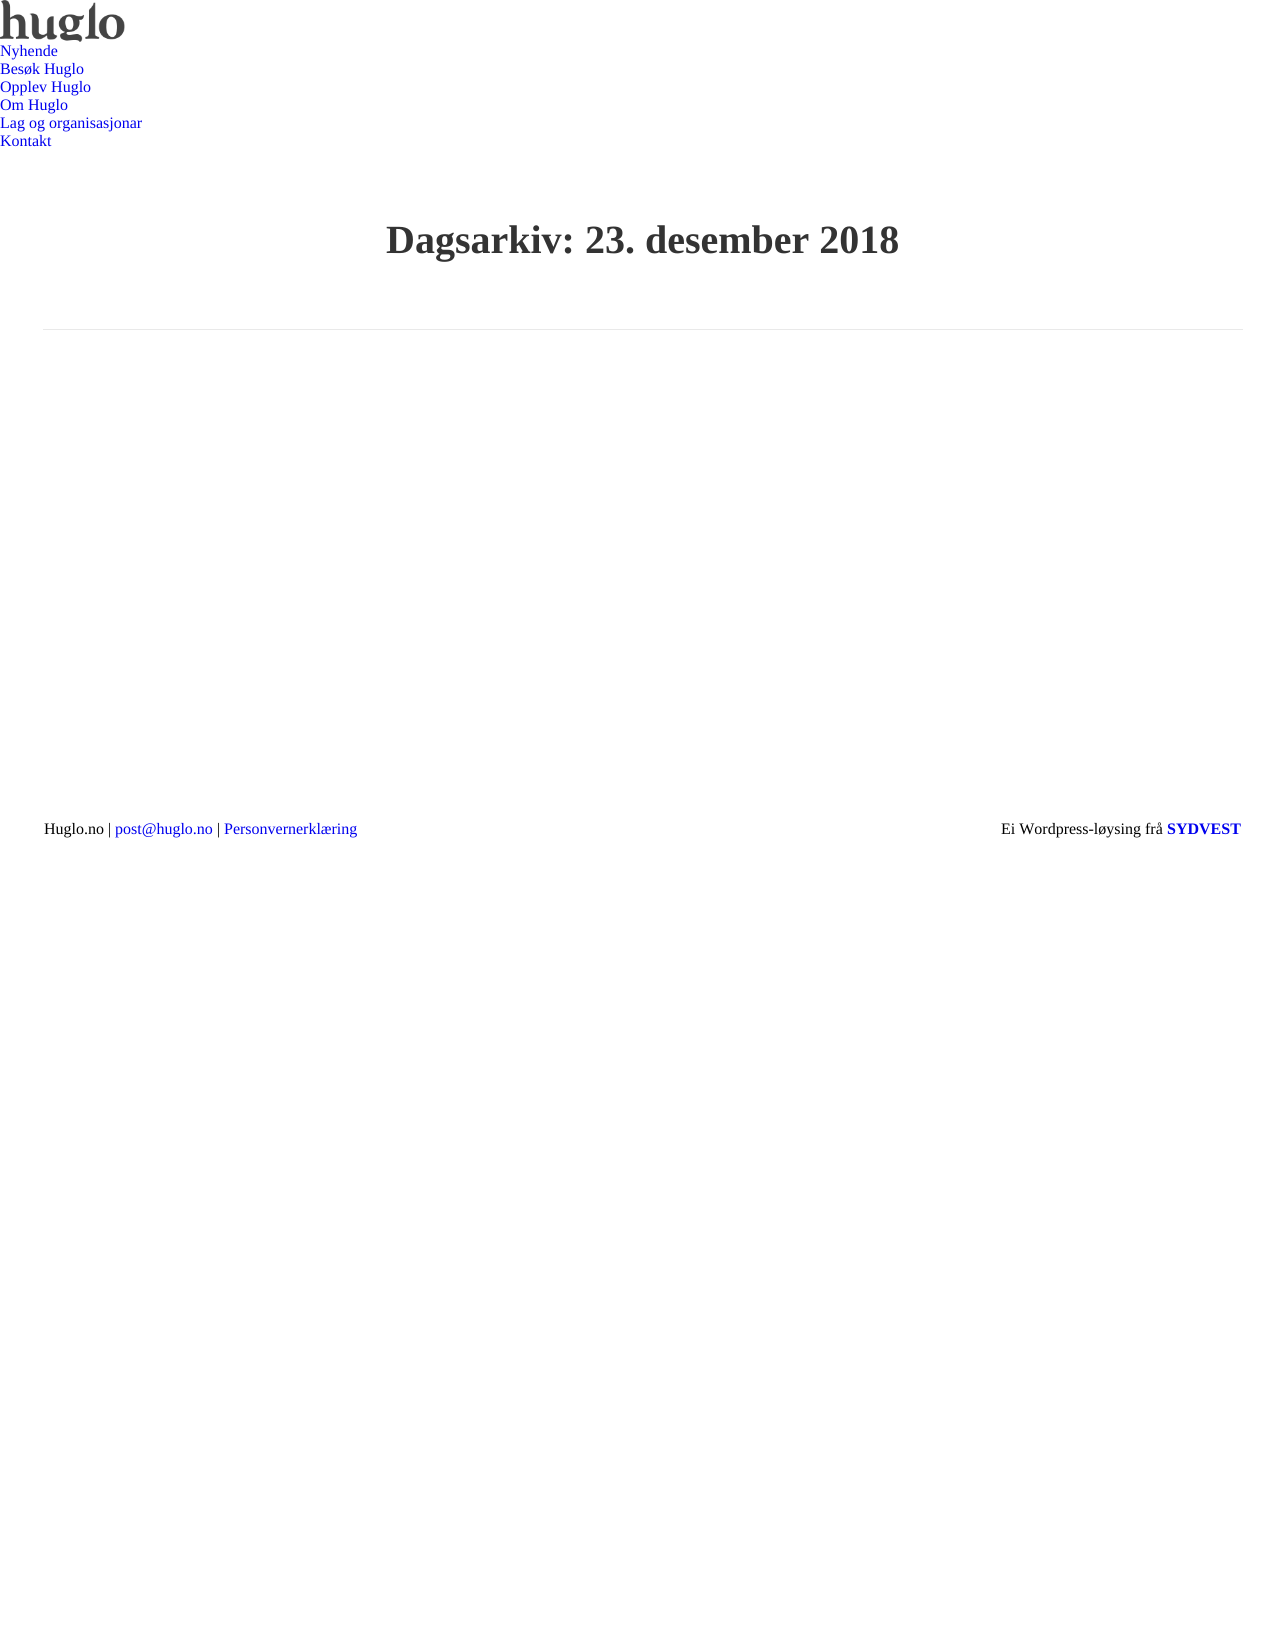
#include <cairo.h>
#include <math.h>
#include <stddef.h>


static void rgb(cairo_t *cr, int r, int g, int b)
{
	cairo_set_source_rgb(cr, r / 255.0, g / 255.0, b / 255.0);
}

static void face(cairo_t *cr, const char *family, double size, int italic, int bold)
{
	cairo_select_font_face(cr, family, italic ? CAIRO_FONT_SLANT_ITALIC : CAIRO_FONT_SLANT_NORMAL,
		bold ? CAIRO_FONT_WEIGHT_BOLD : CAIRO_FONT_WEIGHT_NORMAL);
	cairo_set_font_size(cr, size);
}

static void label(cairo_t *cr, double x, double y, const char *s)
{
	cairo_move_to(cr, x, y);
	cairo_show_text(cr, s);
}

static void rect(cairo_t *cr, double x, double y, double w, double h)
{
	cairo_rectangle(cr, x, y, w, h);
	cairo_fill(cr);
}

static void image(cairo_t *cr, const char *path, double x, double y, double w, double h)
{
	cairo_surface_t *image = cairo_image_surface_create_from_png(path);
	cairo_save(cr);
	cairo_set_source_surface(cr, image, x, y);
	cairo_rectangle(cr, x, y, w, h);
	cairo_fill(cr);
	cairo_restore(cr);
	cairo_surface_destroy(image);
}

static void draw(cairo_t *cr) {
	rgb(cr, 255, 255, 255);
	cairo_paint(cr);
	image(cr, "image0.png", 0, 0, 125, 42);
	face(cr, "Liberation Serif", 16, 0, 0);
	rgb(cr, 0, 0, 238);
	label(cr, 0, 56, "Nyhende");
	label(cr, 0, 74, "Besøk Huglo");
	label(cr, 0, 92, "Opplev Huglo");
	label(cr, 0, 110, "Om Huglo");
	label(cr, 0, 128, "Lag og organisasjonar");
	label(cr, 0, 146, "Kontakt");
	rgb(cr, 233, 233, 233);
	rect(cr, 43, 329, 1200, 1);
	face(cr, "Liberation Serif", 40, 0, 1);
	rgb(cr, 51, 51, 51);
	label(cr, 386, 253, "Dagsarkiv: 23. desember 2018");
	face(cr, "Liberation Serif", 16, 0, 0);
	rgb(cr, 0, 0, 0);
	label(cr, 44, 834, "Huglo.no |");
	rgb(cr, 0, 0, 238);
	label(cr, 115, 834, "post@huglo.no");
	rgb(cr, 0, 0, 0);
	label(cr, 217, 834, "|");
	rgb(cr, 0, 0, 238);
	label(cr, 224, 834, "Personvernerklæring");
	rgb(cr, 0, 0, 0);
	label(cr, 1001, 834, "Ei Wordpress-løysing frå");
	face(cr, "Liberation Serif", 16, 0, 1);
	rgb(cr, 0, 0, 238);
	label(cr, 1167, 834, "SYDVEST");
}

int main(void) {
	cairo_surface_t *surface = cairo_image_surface_create(CAIRO_FORMAT_RGB24, 1285, 1652);
	cairo_t *cr = cairo_create(surface);
	cairo_font_options_t *options = cairo_font_options_create();
	cairo_font_options_set_hint_metrics(options, CAIRO_HINT_METRICS_OFF);
	cairo_font_options_set_hint_style(options, CAIRO_HINT_STYLE_NONE);
	cairo_set_font_options(cr, options);
	cairo_set_miter_limit(cr, 4);
	draw(cr);
	cairo_surface_write_to_png(surface, "render.png");
	cairo_font_options_destroy(options);
	cairo_destroy(cr);
	cairo_surface_destroy(surface);
	return 0;
}
